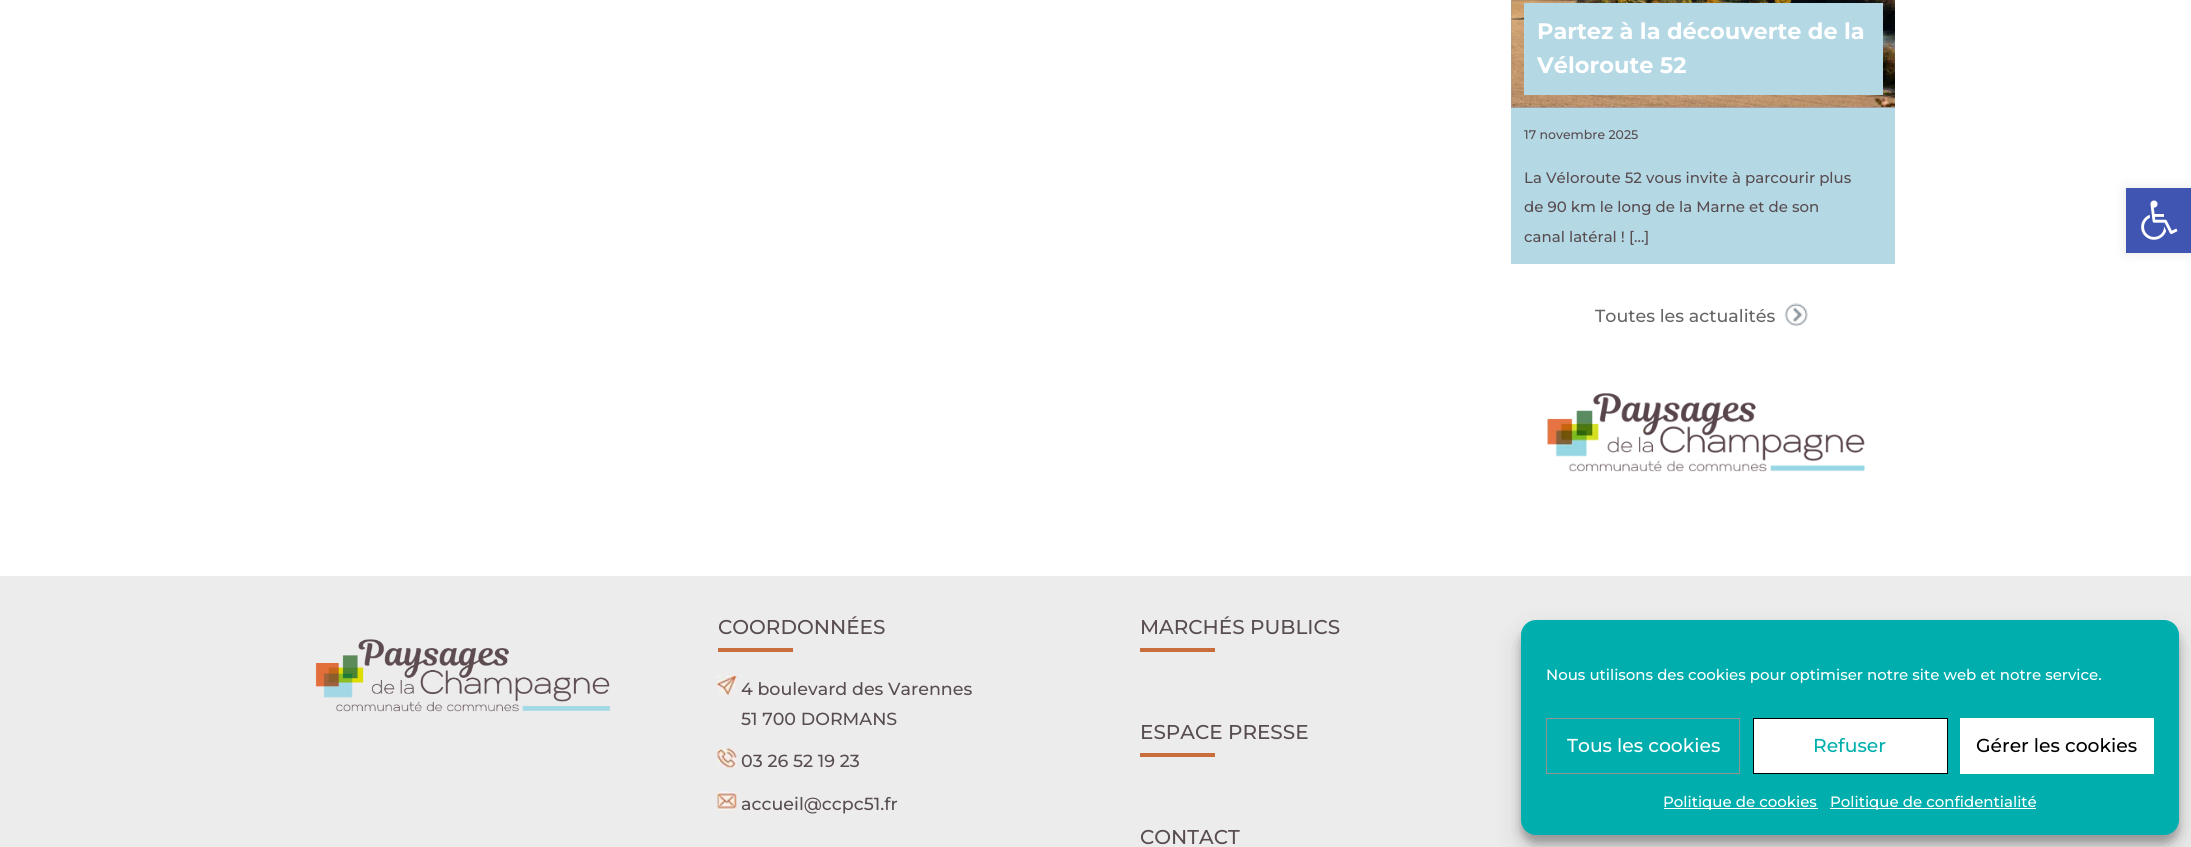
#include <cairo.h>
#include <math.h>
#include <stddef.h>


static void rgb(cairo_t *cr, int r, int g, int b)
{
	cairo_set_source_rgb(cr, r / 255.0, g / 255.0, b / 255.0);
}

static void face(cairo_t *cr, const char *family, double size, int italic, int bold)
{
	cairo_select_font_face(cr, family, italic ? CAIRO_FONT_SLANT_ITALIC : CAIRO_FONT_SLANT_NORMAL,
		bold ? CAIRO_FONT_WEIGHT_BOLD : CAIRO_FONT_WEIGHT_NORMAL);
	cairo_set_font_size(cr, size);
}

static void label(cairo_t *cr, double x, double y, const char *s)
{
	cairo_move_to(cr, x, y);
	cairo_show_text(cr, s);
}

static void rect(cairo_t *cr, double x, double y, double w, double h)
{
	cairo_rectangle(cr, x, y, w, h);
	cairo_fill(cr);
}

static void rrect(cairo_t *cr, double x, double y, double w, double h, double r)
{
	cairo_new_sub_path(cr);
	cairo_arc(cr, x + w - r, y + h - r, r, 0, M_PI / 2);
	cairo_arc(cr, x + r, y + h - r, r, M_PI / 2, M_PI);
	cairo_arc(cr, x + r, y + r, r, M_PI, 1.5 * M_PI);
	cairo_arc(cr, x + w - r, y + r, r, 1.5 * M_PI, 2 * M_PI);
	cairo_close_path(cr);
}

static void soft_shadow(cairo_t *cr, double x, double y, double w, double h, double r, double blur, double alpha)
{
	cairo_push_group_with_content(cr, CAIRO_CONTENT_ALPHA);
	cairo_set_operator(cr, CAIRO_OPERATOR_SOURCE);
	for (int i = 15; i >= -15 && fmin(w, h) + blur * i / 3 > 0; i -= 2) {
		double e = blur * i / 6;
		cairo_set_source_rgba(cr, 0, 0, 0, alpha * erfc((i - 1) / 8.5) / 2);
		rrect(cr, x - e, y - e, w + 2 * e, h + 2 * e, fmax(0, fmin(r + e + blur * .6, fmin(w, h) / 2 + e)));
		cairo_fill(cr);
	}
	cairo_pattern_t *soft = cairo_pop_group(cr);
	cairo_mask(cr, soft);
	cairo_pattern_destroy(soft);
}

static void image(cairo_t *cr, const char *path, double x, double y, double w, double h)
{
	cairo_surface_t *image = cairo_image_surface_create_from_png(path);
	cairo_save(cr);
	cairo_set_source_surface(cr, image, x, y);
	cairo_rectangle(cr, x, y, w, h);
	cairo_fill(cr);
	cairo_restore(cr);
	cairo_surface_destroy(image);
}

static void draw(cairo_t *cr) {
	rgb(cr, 255, 255, 255);
	cairo_paint(cr);
	rgb(cr, 181, 216, 229);
	rect(cr, 1511, 108, 384, 156);
	rgb(cr, 162, 161, 161);
	rect(cr, 1511, 0, 384, 108);
	image(cr, "image0.png", 1511, 0, 384, 108);
	rgb(cr, 181, 216, 229);
	rect(cr, 1524, 3, 359, 92);
	face(cr, "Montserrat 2 Thin", 22.5, 0, 0);
	rgb(cr, 255, 255, 255);
	label(cr, 1537, 39, "Partez à la découverte de la");
	label(cr, 1537, 73, "Véloroute 52");
	face(cr, "Montserrat Thin", 12.5, 0, 0);
	rgb(cr, 88, 77, 80);
	label(cr, 1524, 139, "17 novembre 2025");
	face(cr, "Montserrat Thin", 15, 0, 0);
	label(cr, 1524, 183, "La Véloroute 52 vous invite à parcourir plus");
	label(cr, 1524, 212, "de 90 km le long de la Marne et de son");
	label(cr, 1524, 242, "canal latéral ! […]");
	face(cr, "Montserrat Thin", 17.5, 0, 0);
	rgb(cr, 102, 102, 102);
	label(cr, 1595, 322, "Toutes les actualités");
	image(cr, "image1.png", 1784, 303, 24, 24);
	image(cr, "image2.png", 1547, 393, 318, 79);
	rgb(cr, 237, 236, 237);
	rect(cr, 0, 576, 2191, 271);
	image(cr, "image3.png", 315, 639, 295, 73);
	face(cr, "Montserrat Thin", 20, 0, 0);
	rgb(cr, 88, 77, 80);
	label(cr, 718, 634, "COORDONNÉES");
	rgb(cr, 201, 109, 61);
	rect(cr, 718, 648, 75, 4);
	image(cr, "image4.png", 717, 676, 20, 19);
	face(cr, "Montserrat Thin", 17.5, 0, 0);
	rgb(cr, 88, 77, 80);
	label(cr, 741, 695, "4 boulevard des Varennes");
	label(cr, 741, 725, "51 700 DORMANS");
	image(cr, "image5.png", 717, 748, 20, 20);
	label(cr, 741, 767, "03 26 52 19 23");
	image(cr, "image6.png", 717, 791, 20, 19);
	label(cr, 741, 810, "accueil@ccpc51.fr");
	face(cr, "Montserrat Thin", 20, 0, 0);
	label(cr, 1140, 634, "MARCHÉS PUBLICS");
	rgb(cr, 201, 109, 61);
	rect(cr, 1140, 648, 75, 4);
	rgb(cr, 88, 77, 80);
	label(cr, 1140, 739, "ESPACE PRESSE");
	rgb(cr, 201, 109, 61);
	rect(cr, 1140, 753, 75, 4);
	rgb(cr, 88, 77, 80);
	label(cr, 1140, 844, "CONTACT");
	rgb(cr, 0, 0, 0);
	soft_shadow(cr, 2126, 188, 65, 65, 0, 6, 0.1);
	rgb(cr, 64, 84, 178);
	rect(cr, 2126, 188, 65, 65);
	image(cr, "image7.png", 2141, 200, 37, 40);
	rgb(cr, 0, 0, 0);
	soft_shadow(cr, 1521, 628, 658, 215, 15, 4, 0.23);
	soft_shadow(cr, 1521, 633, 658, 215, 15, 12.5, 0.19);
	rgb(cr, 0, 175, 173);
	rrect(cr, 1521, 620, 658, 215, 15);
	cairo_fill(cr);
	face(cr, "Montserrat Thin", 15, 0, 0);
	rgb(cr, 255, 255, 255);
	label(cr, 1546, 680, "Nous utilisons des cookies pour optimiser notre site web et notre service.");
	cairo_rectangle(cr, 1546.5, 718.5, 193, 55);
	rgb(cr, 147, 147, 147);
	cairo_set_line_width(cr, 1);
	cairo_stroke(cr);
	face(cr, "Montserrat Thin", 18.75, 0, 0);
	rgb(cr, 255, 255, 255);
	label(cr, 1567, 752, "Tous les cookies");
	cairo_rectangle(cr, 1753.5, 718.5, 194, 55);
	cairo_fill_preserve(cr);
	rgb(cr, 0, 0, 0);
	cairo_stroke(cr);
	rgb(cr, 0, 175, 173);
	label(cr, 1813, 752, "Refuser");
	rgb(cr, 255, 255, 255);
	rect(cr, 1960, 718, 194, 56);
	rgb(cr, 0, 0, 0);
	label(cr, 1976, 752, "Gérer les cookies");
	rgb(cr, 255, 255, 255);
	rect(cr, 1664, 808, 154, 1);
	face(cr, "Montserrat Thin", 15, 0, 0);
	label(cr, 1663, 807, "Politique de cookies");
	rect(cr, 1830, 808, 206, 1);
	label(cr, 1830, 807, "Politique de confidentialité");
}

int main(void) {
	cairo_surface_t *surface = cairo_image_surface_create(CAIRO_FORMAT_RGB24, 2191, 847);
	cairo_t *cr = cairo_create(surface);
	cairo_font_options_t *options = cairo_font_options_create();
	cairo_font_options_set_hint_metrics(options, CAIRO_HINT_METRICS_OFF);
	cairo_font_options_set_hint_style(options, CAIRO_HINT_STYLE_NONE);
	cairo_set_font_options(cr, options);
	cairo_set_miter_limit(cr, 4);
	draw(cr);
	cairo_surface_write_to_png(surface, "render.png");
	cairo_font_options_destroy(options);
	cairo_destroy(cr);
	cairo_surface_destroy(surface);
	return 0;
}
